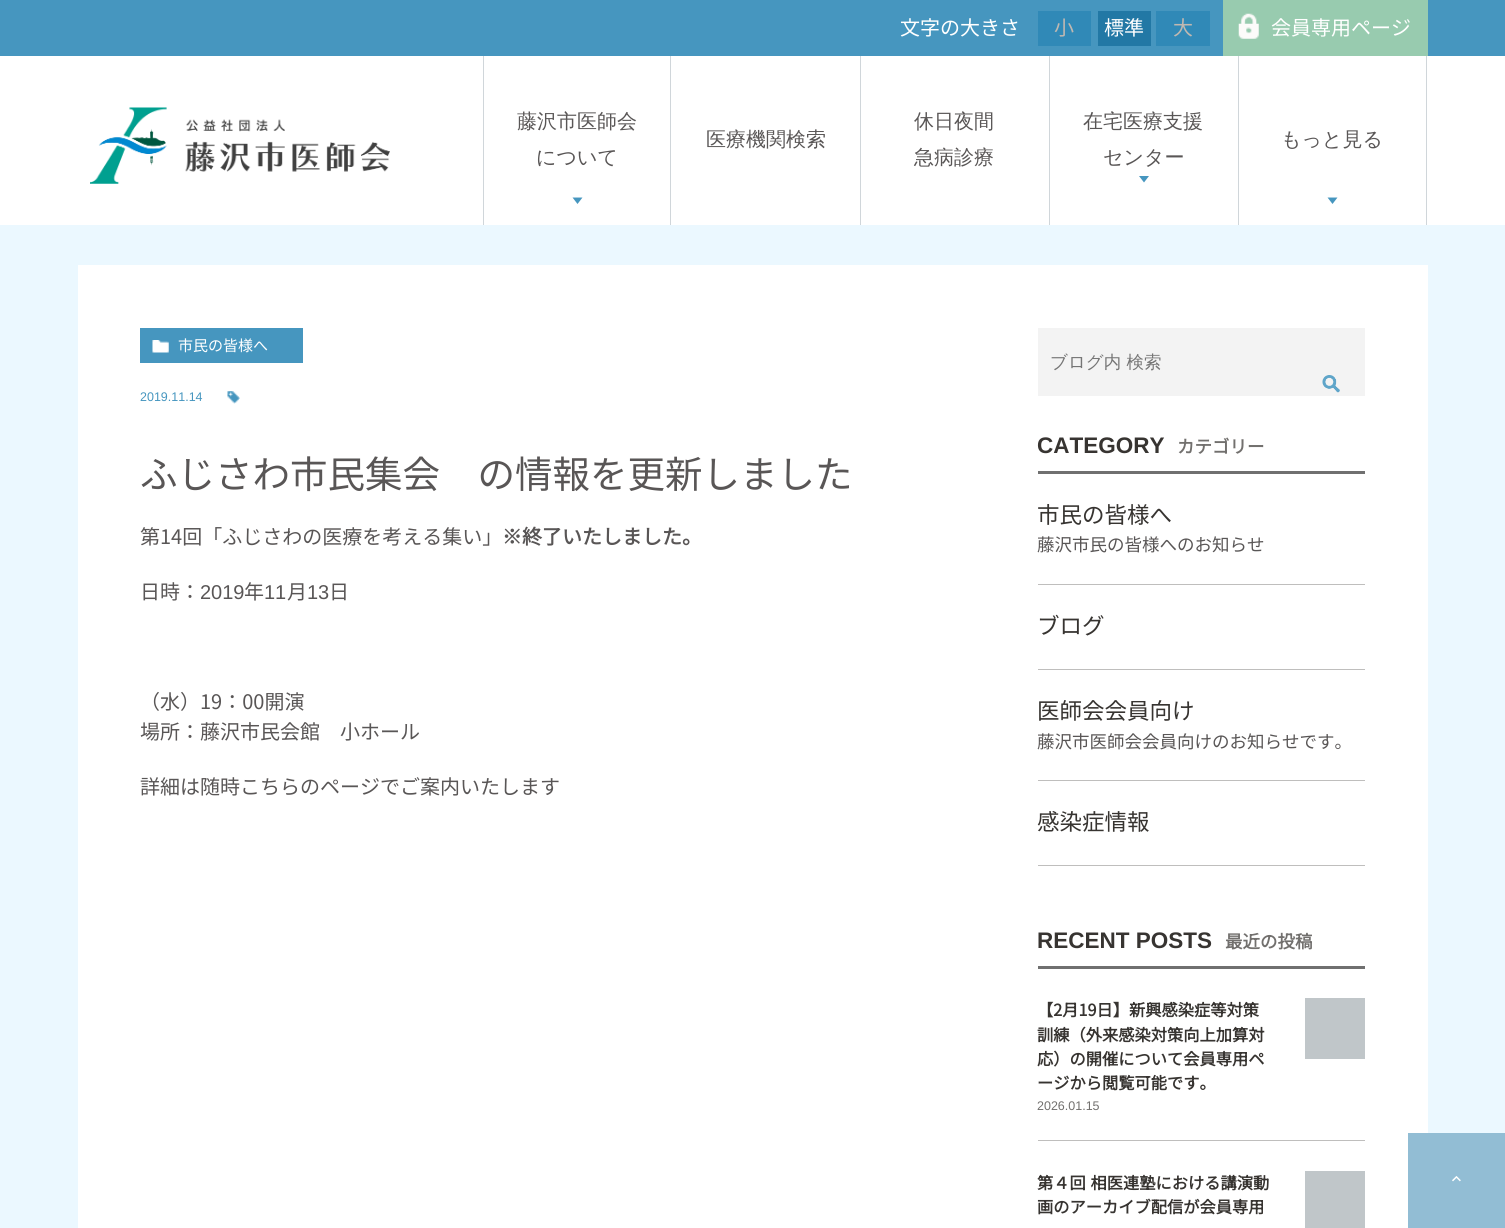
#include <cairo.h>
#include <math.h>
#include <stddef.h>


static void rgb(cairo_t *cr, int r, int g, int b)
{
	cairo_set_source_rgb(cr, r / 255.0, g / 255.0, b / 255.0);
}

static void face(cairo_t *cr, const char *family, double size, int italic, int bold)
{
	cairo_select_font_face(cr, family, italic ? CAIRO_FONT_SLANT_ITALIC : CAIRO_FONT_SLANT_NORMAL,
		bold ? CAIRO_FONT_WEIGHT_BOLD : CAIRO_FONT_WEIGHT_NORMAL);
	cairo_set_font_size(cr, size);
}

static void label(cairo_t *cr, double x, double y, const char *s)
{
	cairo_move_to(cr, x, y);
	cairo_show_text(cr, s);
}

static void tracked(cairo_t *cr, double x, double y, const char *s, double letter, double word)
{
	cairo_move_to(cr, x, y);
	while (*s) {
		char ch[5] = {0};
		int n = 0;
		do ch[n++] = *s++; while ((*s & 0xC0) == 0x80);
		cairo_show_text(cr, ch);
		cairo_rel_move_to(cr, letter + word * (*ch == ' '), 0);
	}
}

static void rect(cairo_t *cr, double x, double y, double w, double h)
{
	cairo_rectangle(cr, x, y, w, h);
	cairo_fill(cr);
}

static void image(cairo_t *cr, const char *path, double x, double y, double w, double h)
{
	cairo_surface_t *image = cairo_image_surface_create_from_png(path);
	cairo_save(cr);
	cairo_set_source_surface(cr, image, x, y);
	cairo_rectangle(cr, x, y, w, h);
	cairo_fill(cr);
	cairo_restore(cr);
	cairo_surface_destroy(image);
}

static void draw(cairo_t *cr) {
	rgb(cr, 255, 255, 255);
	cairo_paint(cr);
	rgb(cr, 70, 150, 191);
	rect(cr, 0, 0, 1505, 56);
	face(cr, "Noto Sans JP Thin", 20, 0, 0);
	rgb(cr, 255, 255, 255);
	label(cr, 900, 35, "文字の大きさ");
	rgb(cr, 48, 137, 183);
	rect(cr, 1038, 11, 53, 35);
	rgb(cr, 192, 184, 177);
	label(cr, 1054, 35, "小");
	rgb(cr, 34, 120, 165);
	rect(cr, 1098, 11, 53, 35);
	rgb(cr, 255, 255, 255);
	label(cr, 1104, 35, "標準");
	rgb(cr, 48, 137, 183);
	rect(cr, 1156, 11, 54, 35);
	rgb(cr, 192, 184, 177);
	label(cr, 1173, 35, "大");
	rgb(cr, 152, 203, 175);
	rect(cr, 1223, 0, 205, 56);
	image(cr, "image0.png", 1238, 13, 21, 26);
	rgb(cr, 255, 255, 255);
	label(cr, 1271, 35, "会員専用ページ");
	image(cr, "image1.png", 90, 107, 300, 77);
	rgb(cr, 208, 214, 218);
	rect(cr, 670, 56, 1, 169);
	rect(cr, 483, 56, 1, 169);
	face(cr, "WenQuanYi Zen Hei Medium", 20, 0, 0);
	rgb(cr, 89, 86, 86);
	label(cr, 517, 128, "藤沢市医師会");
	label(cr, 536, 164, "について");
	rgb(cr, 70, 150, 191);
	cairo_new_path(cr);
	cairo_move_to(cr, 572.5, 197.5);
	cairo_line_to(cr, 582.5, 197.5);
	cairo_line_to(cr, 577.5, 204);
	cairo_close_path(cr);
	cairo_fill(cr);
	rgb(cr, 208, 214, 218);
	rect(cr, 860, 56, 1, 169);
	rgb(cr, 89, 86, 86);
	label(cr, 706, 146, "医療機関検索");
	rgb(cr, 208, 214, 218);
	rect(cr, 1049, 56, 1, 169);
	rgb(cr, 89, 86, 86);
	label(cr, 914, 128, "休日夜間");
	label(cr, 914, 164, "急病診療");
	rgb(cr, 208, 214, 218);
	rect(cr, 1238, 56, 1, 169);
	rgb(cr, 89, 86, 86);
	label(cr, 1083, 128, "在宅医療支援");
	label(cr, 1103, 164, "センター");
	rgb(cr, 70, 150, 191);
	cairo_new_path(cr);
	cairo_move_to(cr, 1139, 176);
	cairo_line_to(cr, 1149, 176);
	cairo_line_to(cr, 1144, 182.5);
	cairo_close_path(cr);
	cairo_fill(cr);
	rgb(cr, 208, 214, 218);
	rect(cr, 1426, 56, 1, 169);
	rgb(cr, 89, 86, 86);
	label(cr, 1281, 146, "もっと見る");
	rgb(cr, 70, 150, 191);
	cairo_new_path(cr);
	cairo_move_to(cr, 1327.5, 197.5);
	cairo_line_to(cr, 1337.5, 197.5);
	cairo_line_to(cr, 1332.5, 204);
	cairo_close_path(cr);
	cairo_fill(cr);
	rgb(cr, 235, 248, 255);
	rect(cr, 0, 225, 1505, 1003);
	rgb(cr, 255, 255, 255);
	rect(cr, 78, 265, 1350, 963);
	rgb(cr, 70, 150, 191);
	rect(cr, 140, 328, 163, 35);
	image(cr, "image2.png", 152, 340, 17, 13);
	face(cr, "Noto Sans JP Thin", 15, 0, 0);
	rgb(cr, 255, 255, 255);
	label(cr, 178, 351, "市民の皆様へ");
	face(cr, "Liberation Sans", 12.5, 0, 0);
	rgb(cr, 70, 150, 191);
	label(cr, 140, 401, "2019.11.14");
	image(cr, "image3.png", 227, 391, 13, 13);
	face(cr, "Noto Sans JP Thin", 37.5, 0, 0);
	rgb(cr, 89, 86, 86);
	label(cr, 140, 488, "ふじさわ市民集会　の情報を更新しました");
	face(cr, "Noto Sans JP Thin", 20, 0, 0);
	label(cr, 140, 544, "第14回「ふじさわの医療を考える集い」");
	face(cr, "Noto Sans JP", 20, 0, 1);
	label(cr, 502, 544, "※終了いたしました。");
	face(cr, "Noto Sans JP Thin", 20, 0, 0);
	label(cr, 140, 599, "日時：");
	face(cr, "Liberation Sans", 20, 0, 0);
	label(cr, 200, 599, "2019");
	face(cr, "Noto Sans JP Thin", 20, 0, 0);
	label(cr, 244, 599, "年");
	face(cr, "Liberation Sans", 20, 0, 0);
	label(cr, 264, 599, "11");
	face(cr, "Noto Sans JP Thin", 20, 0, 0);
	label(cr, 287, 599, "月");
	face(cr, "Liberation Sans", 20, 0, 0);
	label(cr, 307, 599, "13");
	face(cr, "Noto Sans JP Thin", 20, 0, 0);
	label(cr, 329, 599, "日");
	label(cr, 140, 709, "（水）19：00開演");
	label(cr, 140, 739, "場所：藤沢市民会館　小ホール");
	label(cr, 140, 794, "詳細は随時こちらのページでご案内いたします");
	rgb(cr, 243, 243, 243);
	rect(cr, 1038, 328, 327, 68);
	face(cr, "WenQuanYi Zen Hei Medium", 17.5, 0, 0);
	rgb(cr, 117, 117, 117);
	label(cr, 1050, 368, "ブログ内 検索");
	image(cr, "image4.png", 1322, 375, 18, 18);
	rgb(cr, 112, 112, 112);
	rect(cr, 1038, 471, 327, 3);
	face(cr, "Liberation Sans", 22.5, 0, 1);
	rgb(cr, 55, 52, 49);
	label(cr, 1037, 453, "CATEGORY");
	face(cr, "Noto Sans JP", 17.5, 0, 1);
	rgb(cr, 114, 112, 110);
	label(cr, 1177, 453, "カテゴリー");
	rgb(cr, 191, 190, 189);
	rect(cr, 1038, 584, 327, 1);
	face(cr, "Noto Sans JP Thin", 22.5, 0, 0);
	rgb(cr, 55, 52, 49);
	label(cr, 1037, 523, "市民の皆様へ");
	face(cr, "Noto Sans JP Thin", 17.5, 0, 0);
	rgb(cr, 89, 86, 86);
	label(cr, 1037, 551, "藤沢市民の皆様へのお知らせ");
	rgb(cr, 191, 190, 189);
	rect(cr, 1038, 669, 327, 1);
	face(cr, "Noto Sans JP Thin", 22.5, 0, 0);
	rgb(cr, 55, 52, 49);
	label(cr, 1037, 634, "ブログ");
	rgb(cr, 191, 190, 189);
	rect(cr, 1038, 780, 327, 1);
	rgb(cr, 55, 52, 49);
	label(cr, 1037, 719, "医師会会員向け");
	face(cr, "Noto Sans JP Thin", 17.5, 0, 0);
	rgb(cr, 89, 86, 86);
	label(cr, 1037, 748, "藤沢市医師会会員向けのお知らせです。");
	rgb(cr, 191, 190, 189);
	rect(cr, 1038, 865, 327, 1);
	face(cr, "Noto Sans JP Thin", 22.5, 0, 0);
	rgb(cr, 55, 52, 49);
	label(cr, 1037, 830, "感染症情報");
	rgb(cr, 112, 112, 112);
	rect(cr, 1038, 966, 327, 3);
	face(cr, "Liberation Sans", 22.5, 0, 1);
	rgb(cr, 55, 52, 49);
	label(cr, 1037, 948, "RECENT POSTS");
	face(cr, "Noto Sans JP", 17.5, 0, 1);
	rgb(cr, 114, 112, 110);
	label(cr, 1225, 948, "最近の投稿");
	rgb(cr, 191, 190, 189);
	rect(cr, 1038, 1140, 327, 1);
	face(cr, "Noto Sans JP", 16.25, 0, 1);
	rgb(cr, 55, 52, 49);
	label(cr, 1037, 1016, "【2月19日】新興感染症等対策");
	label(cr, 1037, 1041, "訓練（外来感染対策向上加算対");
	label(cr, 1037, 1065, "応）の開催について会員専用ペ");
	label(cr, 1037, 1089, "ージから閲覧可能です。");
	face(cr, "Liberation Sans", 12.5, 0, 0);
	rgb(cr, 114, 112, 110);
	label(cr, 1037, 1110, "2026.01.15");
	rgb(cr, 192, 198, 201);
	rect(cr, 1305, 998, 60, 61);
	face(cr, "Noto Sans JP", 16.25, 0, 1);
	rgb(cr, 55, 52, 49);
	tracked(cr, 1037, 1189, "第４回 相医連塾における講演動", 0, 1);
	label(cr, 1037, 1213, "画のアーカイブ配信が会員専用");
	rgb(cr, 192, 198, 201);
	rect(cr, 1305, 1171, 60, 57);
	rgb(cr, 146, 189, 212);
	rect(cr, 1408, 1133, 97, 95);
	image(cr, "image5.png", 1452, 1176, 9, 6);
}

int main(void) {
	cairo_surface_t *surface = cairo_image_surface_create(CAIRO_FORMAT_RGB24, 1505, 1228);
	cairo_t *cr = cairo_create(surface);
	cairo_font_options_t *options = cairo_font_options_create();
	cairo_font_options_set_hint_metrics(options, CAIRO_HINT_METRICS_OFF);
	cairo_font_options_set_hint_style(options, CAIRO_HINT_STYLE_NONE);
	cairo_set_font_options(cr, options);
	cairo_set_miter_limit(cr, 4);
	draw(cr);
	cairo_surface_write_to_png(surface, "render.png");
	cairo_font_options_destroy(options);
	cairo_destroy(cr);
	cairo_surface_destroy(surface);
	return 0;
}
